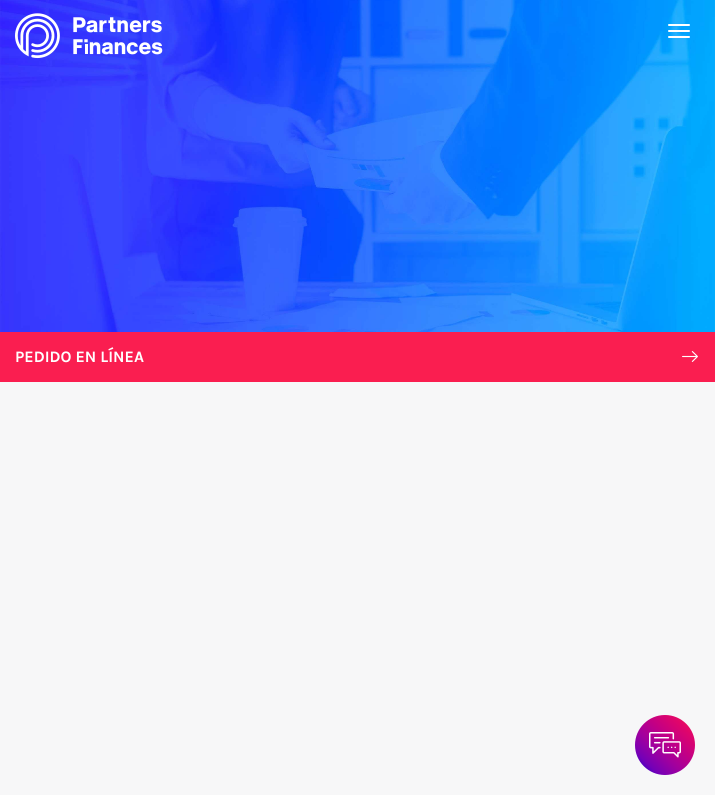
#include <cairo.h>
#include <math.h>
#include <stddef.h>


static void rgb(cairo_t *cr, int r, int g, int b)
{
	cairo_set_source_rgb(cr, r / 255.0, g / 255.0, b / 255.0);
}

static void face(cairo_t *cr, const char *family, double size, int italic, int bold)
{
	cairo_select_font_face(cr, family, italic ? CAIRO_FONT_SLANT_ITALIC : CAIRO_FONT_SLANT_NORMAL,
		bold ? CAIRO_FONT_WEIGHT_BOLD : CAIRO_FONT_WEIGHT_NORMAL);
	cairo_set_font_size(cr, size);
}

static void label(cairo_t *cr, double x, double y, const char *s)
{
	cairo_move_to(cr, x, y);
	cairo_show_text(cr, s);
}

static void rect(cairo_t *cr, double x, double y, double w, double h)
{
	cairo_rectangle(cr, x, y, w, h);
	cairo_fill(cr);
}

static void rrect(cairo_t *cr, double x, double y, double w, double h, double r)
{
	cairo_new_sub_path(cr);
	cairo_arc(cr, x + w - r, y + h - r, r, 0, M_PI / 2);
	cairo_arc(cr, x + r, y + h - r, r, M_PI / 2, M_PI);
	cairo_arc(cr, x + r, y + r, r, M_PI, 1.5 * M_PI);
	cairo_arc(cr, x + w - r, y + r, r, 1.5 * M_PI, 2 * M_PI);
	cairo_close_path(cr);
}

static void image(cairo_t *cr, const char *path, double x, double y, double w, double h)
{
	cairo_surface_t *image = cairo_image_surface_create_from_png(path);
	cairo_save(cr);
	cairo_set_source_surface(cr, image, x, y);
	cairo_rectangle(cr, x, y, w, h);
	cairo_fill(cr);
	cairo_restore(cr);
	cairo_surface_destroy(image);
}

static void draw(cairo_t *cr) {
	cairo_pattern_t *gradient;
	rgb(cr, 247, 247, 248);
	cairo_paint(cr);
	image(cr, "image0.png", 0, 0, 715, 332);
	image(cr, "image1.png", 15, 13, 148, 46);
	rgb(cr, 255, 255, 255);
	rrect(cr, 668, 24, 22, 2, 1);
	cairo_fill(cr);
	rrect(cr, 668, 30, 22, 2, 1);
	cairo_fill(cr);
	rrect(cr, 668, 36, 22, 2, 1);
	cairo_fill(cr);
	rgb(cr, 250, 30, 80);
	rect(cr, 0, 332, 715, 50);
	face(cr, "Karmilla", 16, 0, 1);
	rgb(cr, 255, 255, 255);
	label(cr, 15, 362, "PEDIDO EN LÍNEA");
	image(cr, "image2.png", 682, 351, 16, 11);
	gradient = cairo_pattern_create_linear(636, 776, 694, 714);
	cairo_pattern_add_color_stop_rgba(gradient, 0, 0.012, 0, 0.82, 1);
	cairo_pattern_add_color_stop_rgba(gradient, 0.2, 0.455, 0, 0.718, 1);
	cairo_pattern_add_color_stop_rgba(gradient, 0.4, 0.631, 0, 0.62, 1);
	cairo_pattern_add_color_stop_rgba(gradient, 0.6, 0.765, 0, 0.518, 1);
	cairo_pattern_add_color_stop_rgba(gradient, 0.8, 0.878, 0.02, 0.42, 1);
	cairo_pattern_add_color_stop_rgba(gradient, 1, 0.98, 0.118, 0.314, 1);
	cairo_set_source(cr, gradient);
	cairo_pattern_destroy(gradient);
	cairo_arc(cr, 665, 745, 30, 0, 2 * M_PI);
	cairo_fill(cr);
	image(cr, "image3.png", 649, 732, 32, 26);
}

int main(void) {
	cairo_surface_t *surface = cairo_image_surface_create(CAIRO_FORMAT_RGB24, 715, 795);
	cairo_t *cr = cairo_create(surface);
	cairo_font_options_t *options = cairo_font_options_create();
	cairo_font_options_set_hint_metrics(options, CAIRO_HINT_METRICS_OFF);
	cairo_font_options_set_hint_style(options, CAIRO_HINT_STYLE_NONE);
	cairo_set_font_options(cr, options);
	cairo_set_miter_limit(cr, 4);
	draw(cr);
	cairo_surface_write_to_png(surface, "render.png");
	cairo_font_options_destroy(options);
	cairo_destroy(cr);
	cairo_surface_destroy(surface);
	return 0;
}
